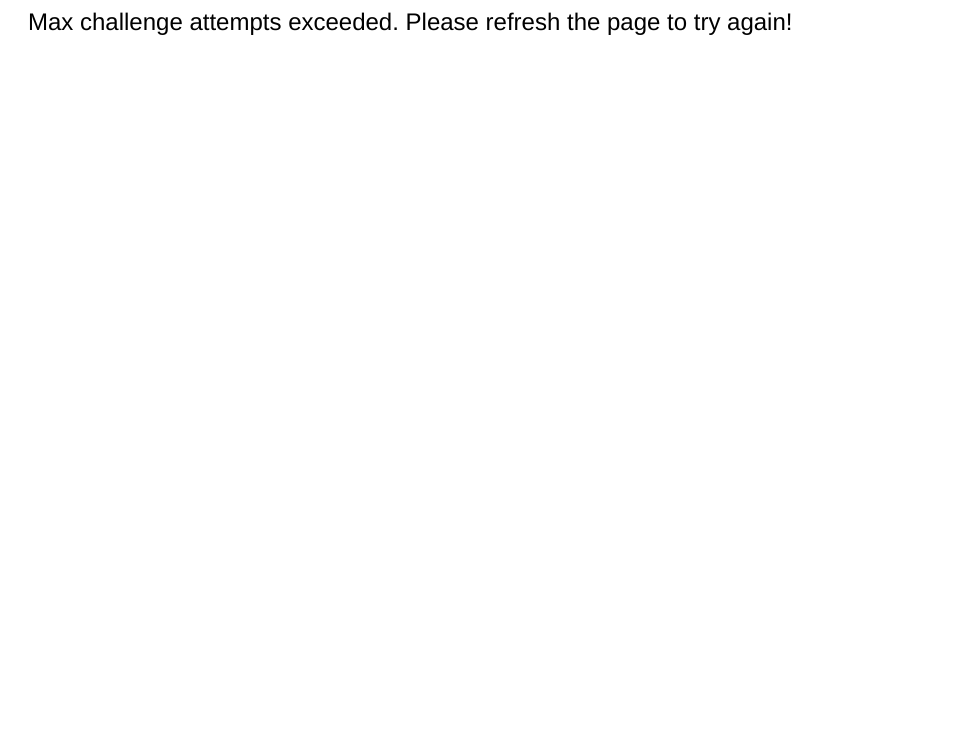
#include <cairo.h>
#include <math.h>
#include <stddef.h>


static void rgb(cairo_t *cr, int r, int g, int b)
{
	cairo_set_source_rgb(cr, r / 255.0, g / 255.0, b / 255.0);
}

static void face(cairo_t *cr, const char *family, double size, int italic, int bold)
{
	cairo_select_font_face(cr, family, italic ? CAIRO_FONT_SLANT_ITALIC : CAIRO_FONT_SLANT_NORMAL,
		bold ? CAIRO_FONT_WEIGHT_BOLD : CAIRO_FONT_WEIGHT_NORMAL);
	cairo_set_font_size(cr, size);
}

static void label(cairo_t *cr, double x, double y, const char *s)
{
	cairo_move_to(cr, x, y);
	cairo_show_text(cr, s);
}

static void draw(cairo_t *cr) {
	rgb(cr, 255, 255, 255);
	cairo_paint(cr);
	face(cr, "Liberation Sans", 24, 0, 0);
	rgb(cr, 0, 0, 0);
	label(cr, 28, 30, "Max challenge attempts exceeded. Please refresh the page to try again!");
}

int main(void) {
	cairo_surface_t *surface = cairo_image_surface_create(CAIRO_FORMAT_RGB24, 970, 743);
	cairo_t *cr = cairo_create(surface);
	cairo_font_options_t *options = cairo_font_options_create();
	cairo_font_options_set_hint_metrics(options, CAIRO_HINT_METRICS_OFF);
	cairo_font_options_set_hint_style(options, CAIRO_HINT_STYLE_NONE);
	cairo_set_font_options(cr, options);
	cairo_set_miter_limit(cr, 4);
	draw(cr);
	cairo_surface_write_to_png(surface, "render.png");
	cairo_font_options_destroy(options);
	cairo_destroy(cr);
	cairo_surface_destroy(surface);
	return 0;
}
